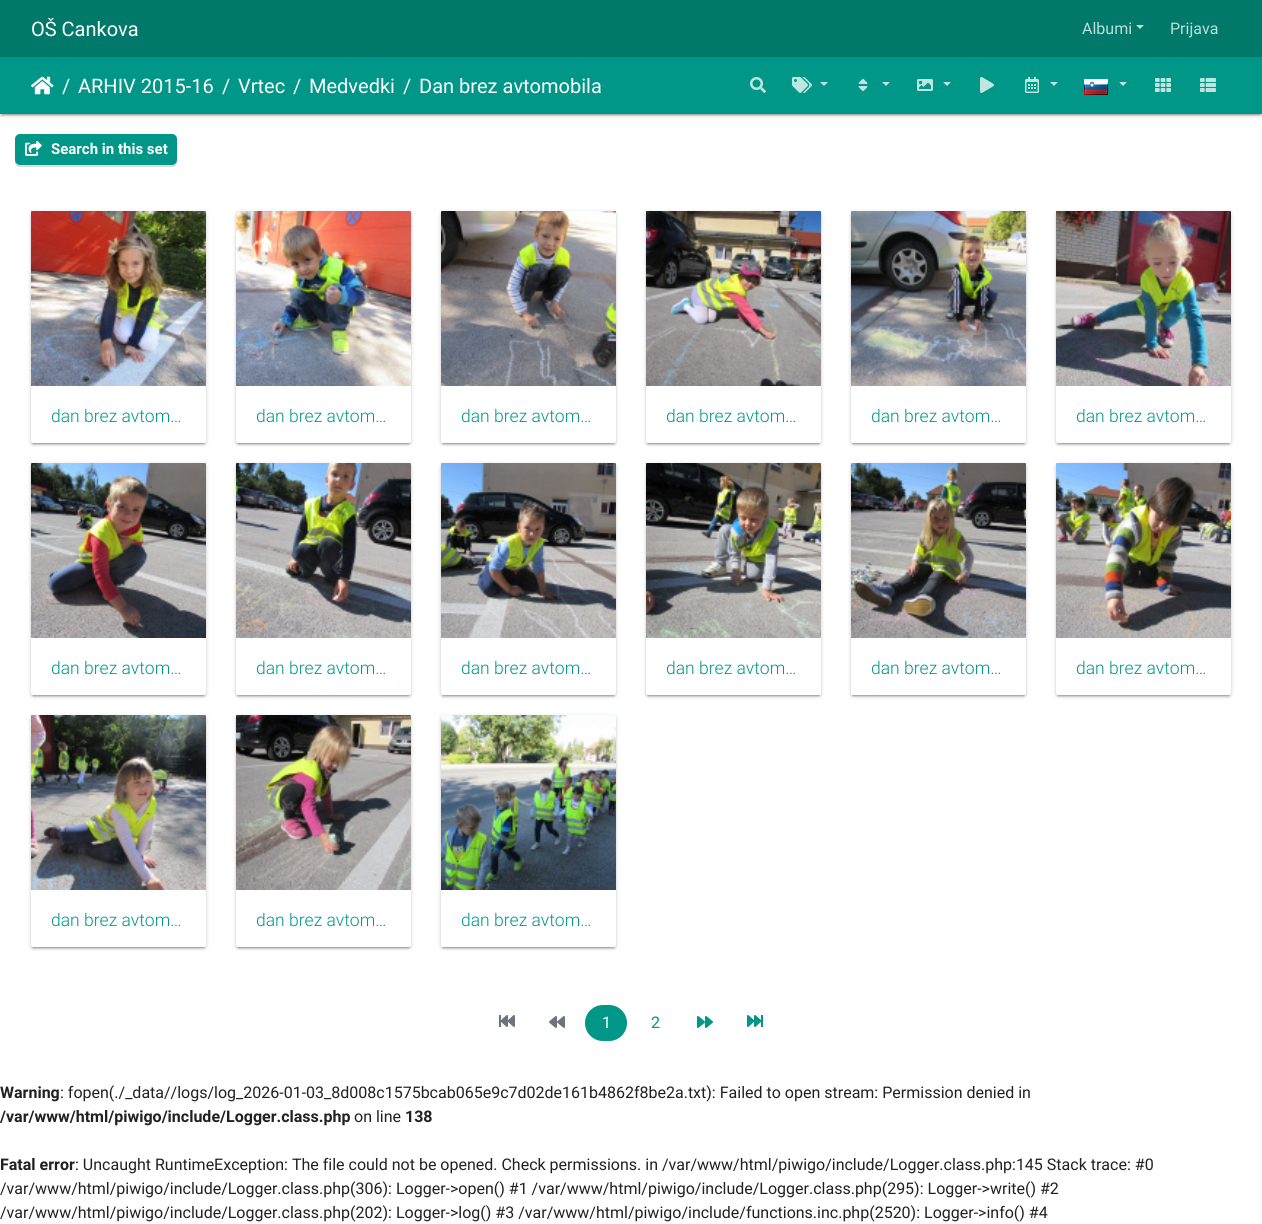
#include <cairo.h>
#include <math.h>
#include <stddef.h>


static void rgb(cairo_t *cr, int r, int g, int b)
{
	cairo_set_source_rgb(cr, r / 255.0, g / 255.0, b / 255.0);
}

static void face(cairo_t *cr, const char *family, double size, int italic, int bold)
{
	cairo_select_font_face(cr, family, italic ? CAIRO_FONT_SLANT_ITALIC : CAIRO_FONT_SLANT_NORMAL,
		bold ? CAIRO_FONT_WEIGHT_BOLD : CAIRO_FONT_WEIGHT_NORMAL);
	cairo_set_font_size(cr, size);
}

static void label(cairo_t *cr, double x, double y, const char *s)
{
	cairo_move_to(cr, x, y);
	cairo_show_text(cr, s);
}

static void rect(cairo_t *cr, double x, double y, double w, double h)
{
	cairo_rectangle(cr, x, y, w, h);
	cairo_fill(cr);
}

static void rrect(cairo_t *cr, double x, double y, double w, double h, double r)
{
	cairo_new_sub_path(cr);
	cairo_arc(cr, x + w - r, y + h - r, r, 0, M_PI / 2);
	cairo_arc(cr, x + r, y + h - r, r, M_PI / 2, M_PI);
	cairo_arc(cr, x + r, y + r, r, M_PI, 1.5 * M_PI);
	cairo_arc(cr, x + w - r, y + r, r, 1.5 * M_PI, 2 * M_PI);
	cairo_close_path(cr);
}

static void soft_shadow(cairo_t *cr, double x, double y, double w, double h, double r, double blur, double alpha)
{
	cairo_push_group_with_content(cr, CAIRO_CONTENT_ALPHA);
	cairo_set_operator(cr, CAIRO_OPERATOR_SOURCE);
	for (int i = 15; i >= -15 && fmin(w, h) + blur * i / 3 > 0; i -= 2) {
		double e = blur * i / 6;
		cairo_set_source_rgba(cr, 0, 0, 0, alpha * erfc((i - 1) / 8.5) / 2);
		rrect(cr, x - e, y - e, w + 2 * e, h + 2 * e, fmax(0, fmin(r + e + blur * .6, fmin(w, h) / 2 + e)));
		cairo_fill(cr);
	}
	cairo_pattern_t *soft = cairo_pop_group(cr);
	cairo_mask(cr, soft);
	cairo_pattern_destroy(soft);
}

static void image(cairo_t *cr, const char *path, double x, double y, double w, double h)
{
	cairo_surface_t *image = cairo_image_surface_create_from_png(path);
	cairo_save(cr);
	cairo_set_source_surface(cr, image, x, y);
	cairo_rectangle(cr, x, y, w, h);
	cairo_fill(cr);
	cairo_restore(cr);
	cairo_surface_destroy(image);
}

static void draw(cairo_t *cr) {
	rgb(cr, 255, 255, 255);
	cairo_paint(cr);
	rgb(cr, 0, 0, 0);
	soft_shadow(cr, 0, 58, 1262, 57, 0, 2.5, 0.12);
	soft_shadow(cr, 0, 59, 1262, 57, 0, 1, 0.14);
	rgb(cr, 0, 121, 107);
	rect(cr, 0, 0, 1262, 57);
	face(cr, "Roboto", 20, 0, 0);
	rgb(cr, 255, 255, 255);
	label(cr, 31, 36, "OŠ Cankova");
	face(cr, "Roboto", 16, 0, 0);
	rgb(cr, 191, 222, 218);
	label(cr, 1082, 34, "Albumi");
	cairo_new_path(cr);
	cairo_move_to(cr, 1136, 25);
	cairo_line_to(cr, 1144, 25);
	cairo_line_to(cr, 1140, 29);
	cairo_close_path(cr);
	cairo_fill(cr);
	label(cr, 1170, 34, "Prijava");
	rgb(cr, 0, 0, 0);
	soft_shadow(cr, 2, 62, 1258, 53, 0, 0.5, 0.2);
	rgb(cr, 0, 150, 136);
	rect(cr, 0, 57, 1262, 57);
	image(cr, "image0.png", 31, 76, 23, 19);
	face(cr, "Roboto", 20, 0, 0);
	rgb(cr, 255, 255, 255);
	label(cr, 62, 93, "/");
	label(cr, 78, 93, "ARHIV 2015-16");
	label(cr, 222, 93, "/");
	label(cr, 238, 93, "Vrtec");
	label(cr, 293, 93, "/");
	label(cr, 309, 93, "Medvedki");
	label(cr, 403, 93, "/");
	label(cr, 419, 93, "Dan brez avtomobila");
	image(cr, "image1.png", 750, 77, 16, 16);
	image(cr, "image2.png", 792, 77, 20, 16);
	rgb(cr, 191, 229, 225);
	cairo_new_path(cr);
	cairo_move_to(cr, 820, 82);
	cairo_line_to(cr, 828, 82);
	cairo_line_to(cr, 824, 86);
	cairo_close_path(cr);
	cairo_fill(cr);
	image(cr, "image3.png", 858, 78, 10, 14);
	cairo_new_path(cr);
	cairo_move_to(cr, 882, 82);
	cairo_line_to(cr, 890, 82);
	cairo_line_to(cr, 886, 86);
	cairo_close_path(cr);
	cairo_fill(cr);
	image(cr, "image4.png", 917, 79, 16, 12);
	cairo_new_path(cr);
	cairo_move_to(cr, 943, 82);
	cairo_line_to(cr, 951, 82);
	cairo_line_to(cr, 947, 86);
	cairo_close_path(cr);
	cairo_fill(cr);
	image(cr, "image5.png", 980, 77, 14, 16);
	image(cr, "image6.png", 1025, 77, 14, 16);
	cairo_new_path(cr);
	cairo_move_to(cr, 1050, 82);
	cairo_line_to(cr, 1058, 82);
	cairo_line_to(cr, 1054, 86);
	cairo_close_path(cr);
	cairo_fill(cr);
	image(cr, "image7.png", 1084, 79, 24, 16);
	cairo_new_path(cr);
	cairo_move_to(cr, 1119, 82);
	cairo_line_to(cr, 1127, 82);
	cairo_line_to(cr, 1123, 86);
	cairo_close_path(cr);
	cairo_fill(cr);
	image(cr, "image8.png", 1155, 78, 16, 14);
	image(cr, "image9.png", 1200, 78, 16, 14);
	rgb(cr, 219, 219, 219);
	cairo_new_path(cr);
	cairo_move_to(cr, 15, 160);
	cairo_line_to(cr, 15, 162);
	cairo_curve_to(cr, 15, 165, 17, 167, 20, 167);
	cairo_line_to(cr, 172, 167);
	cairo_curve_to(cr, 175, 167, 177, 165, 177, 162);
	cairo_line_to(cr, 177, 160);
	cairo_curve_to(cr, 177, 163, 175, 165, 172, 165);
	cairo_line_to(cr, 20, 165);
	cairo_curve_to(cr, 17, 165, 15, 163, 15, 160);
	cairo_close_path(cr);
	cairo_fill(cr);
	rgb(cr, 0, 150, 136);
	rrect(cr, 15, 134, 162, 31, 5);
	cairo_fill(cr);
	image(cr, "image10.png", 25, 140, 17, 16);
	face(cr, "Roboto", 15, 0, 1);
	rgb(cr, 255, 255, 255);
	label(cr, 51, 154, "Search in this set");
	rgb(cr, 0, 0, 0);
	soft_shadow(cr, 31, 212, 175, 232, 2, 2.5, 0.12);
	soft_shadow(cr, 33, 216, 171, 228, 0, 0.5, 0.2);
	soft_shadow(cr, 31, 213, 175, 232, 2, 1, 0.14);
	rgb(cr, 255, 255, 255);
	rrect(cr, 31, 211, 175, 232, 2);
	cairo_fill(cr);
	image(cr, "image11.png", 31, 211, 175, 175);
	face(cr, "Roboto Light", 17.5, 0, 0);
	rgb(cr, 0, 150, 136);
	label(cr, 51, 422, "dan brez avtom…");
	rgb(cr, 0, 0, 0);
	soft_shadow(cr, 236, 212, 175, 232, 2, 2.5, 0.12);
	soft_shadow(cr, 238, 216, 171, 228, 0, 0.5, 0.2);
	soft_shadow(cr, 236, 213, 175, 232, 2, 1, 0.14);
	rgb(cr, 255, 255, 255);
	rrect(cr, 236, 211, 175, 232, 2);
	cairo_fill(cr);
	image(cr, "image12.png", 236, 211, 175, 175);
	rgb(cr, 0, 150, 136);
	label(cr, 256, 422, "dan brez avtom…");
	rgb(cr, 0, 0, 0);
	soft_shadow(cr, 441, 212, 175, 232, 2, 2.5, 0.12);
	soft_shadow(cr, 443, 216, 171, 228, 0, 0.5, 0.2);
	soft_shadow(cr, 441, 213, 175, 232, 2, 1, 0.14);
	rgb(cr, 255, 255, 255);
	rrect(cr, 441, 211, 175, 232, 2);
	cairo_fill(cr);
	image(cr, "image13.png", 441, 211, 175, 175);
	rgb(cr, 0, 150, 136);
	label(cr, 461, 422, "dan brez avtom…");
	rgb(cr, 0, 0, 0);
	soft_shadow(cr, 646, 212, 175, 232, 2, 2.5, 0.12);
	soft_shadow(cr, 648, 216, 171, 228, 0, 0.5, 0.2);
	soft_shadow(cr, 646, 213, 175, 232, 2, 1, 0.14);
	rgb(cr, 255, 255, 255);
	rrect(cr, 646, 211, 175, 232, 2);
	cairo_fill(cr);
	image(cr, "image14.png", 646, 211, 175, 175);
	rgb(cr, 0, 150, 136);
	label(cr, 666, 422, "dan brez avtom…");
	rgb(cr, 0, 0, 0);
	soft_shadow(cr, 851, 212, 175, 232, 2, 2.5, 0.12);
	soft_shadow(cr, 853, 216, 171, 228, 0, 0.5, 0.2);
	soft_shadow(cr, 851, 213, 175, 232, 2, 1, 0.14);
	rgb(cr, 255, 255, 255);
	rrect(cr, 851, 211, 175, 232, 2);
	cairo_fill(cr);
	image(cr, "image15.png", 851, 211, 175, 175);
	rgb(cr, 0, 150, 136);
	label(cr, 871, 422, "dan brez avtom…");
	rgb(cr, 0, 0, 0);
	soft_shadow(cr, 1056, 212, 175, 232, 2, 2.5, 0.12);
	soft_shadow(cr, 1058, 216, 171, 228, 0, 0.5, 0.2);
	soft_shadow(cr, 1056, 213, 175, 232, 2, 1, 0.14);
	rgb(cr, 255, 255, 255);
	rrect(cr, 1056, 211, 175, 232, 2);
	cairo_fill(cr);
	image(cr, "image16.png", 1056, 211, 175, 175);
	rgb(cr, 0, 150, 136);
	label(cr, 1076, 422, "dan brez avtom…");
	rgb(cr, 0, 0, 0);
	soft_shadow(cr, 31, 464, 175, 232, 2, 2.5, 0.12);
	soft_shadow(cr, 33, 468, 171, 228, 0, 0.5, 0.2);
	soft_shadow(cr, 31, 465, 175, 232, 2, 1, 0.14);
	rgb(cr, 255, 255, 255);
	rrect(cr, 31, 463, 175, 232, 2);
	cairo_fill(cr);
	image(cr, "image17.png", 31, 463, 175, 175);
	rgb(cr, 0, 150, 136);
	label(cr, 51, 674, "dan brez avtom…");
	rgb(cr, 0, 0, 0);
	soft_shadow(cr, 236, 464, 175, 232, 2, 2.5, 0.12);
	soft_shadow(cr, 238, 468, 171, 228, 0, 0.5, 0.2);
	soft_shadow(cr, 236, 465, 175, 232, 2, 1, 0.14);
	rgb(cr, 255, 255, 255);
	rrect(cr, 236, 463, 175, 232, 2);
	cairo_fill(cr);
	image(cr, "image18.png", 236, 463, 175, 175);
	rgb(cr, 0, 150, 136);
	label(cr, 256, 674, "dan brez avtom…");
	rgb(cr, 0, 0, 0);
	soft_shadow(cr, 441, 464, 175, 232, 2, 2.5, 0.12);
	soft_shadow(cr, 443, 468, 171, 228, 0, 0.5, 0.2);
	soft_shadow(cr, 441, 465, 175, 232, 2, 1, 0.14);
	rgb(cr, 255, 255, 255);
	rrect(cr, 441, 463, 175, 232, 2);
	cairo_fill(cr);
	image(cr, "image19.png", 441, 463, 175, 175);
	rgb(cr, 0, 150, 136);
	label(cr, 461, 674, "dan brez avtom…");
	rgb(cr, 0, 0, 0);
	soft_shadow(cr, 646, 464, 175, 232, 2, 2.5, 0.12);
	soft_shadow(cr, 648, 468, 171, 228, 0, 0.5, 0.2);
	soft_shadow(cr, 646, 465, 175, 232, 2, 1, 0.14);
	rgb(cr, 255, 255, 255);
	rrect(cr, 646, 463, 175, 232, 2);
	cairo_fill(cr);
	image(cr, "image20.png", 646, 463, 175, 175);
	rgb(cr, 0, 150, 136);
	label(cr, 666, 674, "dan brez avtom…");
	rgb(cr, 0, 0, 0);
	soft_shadow(cr, 851, 464, 175, 232, 2, 2.5, 0.12);
	soft_shadow(cr, 853, 468, 171, 228, 0, 0.5, 0.2);
	soft_shadow(cr, 851, 465, 175, 232, 2, 1, 0.14);
	rgb(cr, 255, 255, 255);
	rrect(cr, 851, 463, 175, 232, 2);
	cairo_fill(cr);
	image(cr, "image21.png", 851, 463, 175, 175);
	rgb(cr, 0, 150, 136);
	label(cr, 871, 674, "dan brez avtom…");
	rgb(cr, 0, 0, 0);
	soft_shadow(cr, 1056, 464, 175, 232, 2, 2.5, 0.12);
	soft_shadow(cr, 1058, 468, 171, 228, 0, 0.5, 0.2);
	soft_shadow(cr, 1056, 465, 175, 232, 2, 1, 0.14);
	rgb(cr, 255, 255, 255);
	rrect(cr, 1056, 463, 175, 232, 2);
	cairo_fill(cr);
	image(cr, "image22.png", 1056, 463, 175, 175);
	rgb(cr, 0, 150, 136);
	label(cr, 1076, 674, "dan brez avtom…");
	rgb(cr, 0, 0, 0);
	soft_shadow(cr, 31, 716, 175, 232, 2, 2.5, 0.12);
	soft_shadow(cr, 33, 720, 171, 228, 0, 0.5, 0.2);
	soft_shadow(cr, 31, 717, 175, 232, 2, 1, 0.14);
	rgb(cr, 255, 255, 255);
	rrect(cr, 31, 715, 175, 232, 2);
	cairo_fill(cr);
	image(cr, "image23.png", 31, 715, 175, 175);
	rgb(cr, 0, 150, 136);
	label(cr, 51, 926, "dan brez avtom…");
	rgb(cr, 0, 0, 0);
	soft_shadow(cr, 236, 716, 175, 232, 2, 2.5, 0.12);
	soft_shadow(cr, 238, 720, 171, 228, 0, 0.5, 0.2);
	soft_shadow(cr, 236, 717, 175, 232, 2, 1, 0.14);
	rgb(cr, 255, 255, 255);
	rrect(cr, 236, 715, 175, 232, 2);
	cairo_fill(cr);
	image(cr, "image24.png", 236, 715, 175, 175);
	rgb(cr, 0, 150, 136);
	label(cr, 256, 926, "dan brez avtom…");
	rgb(cr, 0, 0, 0);
	soft_shadow(cr, 441, 716, 175, 232, 2, 2.5, 0.12);
	soft_shadow(cr, 443, 720, 171, 228, 0, 0.5, 0.2);
	soft_shadow(cr, 441, 717, 175, 232, 2, 1, 0.14);
	rgb(cr, 255, 255, 255);
	rrect(cr, 441, 715, 175, 232, 2);
	cairo_fill(cr);
	image(cr, "image25.png", 441, 715, 175, 175);
	rgb(cr, 0, 150, 136);
	label(cr, 461, 926, "dan brez avtom…");
	image(cr, "image26.png", 499, 1015, 16, 12);
	image(cr, "image27.png", 549, 1016, 16, 12);
	rrect(cr, 585, 1005, 42, 36, 18);
	cairo_fill(cr);
	face(cr, "Roboto", 16, 0, 0);
	rgb(cr, 255, 255, 255);
	label(cr, 602, 1028, "1");
	rgb(cr, 0, 150, 136);
	label(cr, 651, 1028, "2");
	image(cr, "image28.png", 697, 1016, 16, 12);
	image(cr, "image29.png", 747, 1015, 16, 12);
	face(cr, "Roboto", 16, 0, 1);
	rgb(cr, 33, 33, 33);
	label(cr, 0, 1098, "Warning");
	face(cr, "Roboto", 16, 0, 0);
	label(cr, 60, 1098, ": fopen(./_data//logs/log_2026-01-03_8d008c1575bcab065e9c7d02de161b4862f8be2a.txt): Failed to open stream: Permission denied in");
	face(cr, "Roboto", 16, 0, 1);
	label(cr, 0, 1122, "/var/www/html/piwigo/include/Logger.class.php");
	face(cr, "Roboto", 16, 0, 0);
	label(cr, 354, 1122, "on line");
	face(cr, "Roboto", 16, 0, 1);
	label(cr, 405, 1122, "138");
	label(cr, 0, 1170, "Fatal error");
	face(cr, "Roboto", 16, 0, 0);
	label(cr, 75, 1170, ": Uncaught RuntimeException: The file could not be opened. Check permissions. in /var/www/html/piwigo/include/Logger.class.php:145 Stack trace: #0");
	label(cr, 0, 1194, "/var/www/html/piwigo/include/Logger.class.php(306): Logger->open() #1 /var/www/html/piwigo/include/Logger.class.php(295): Logger->write() #2");
	label(cr, 0, 1218, "/var/www/html/piwigo/include/Logger.class.php(202): Logger->log() #3 /var/www/html/piwigo/include/functions.inc.php(2520): Logger->info() #4");
}

int main(void) {
	cairo_surface_t *surface = cairo_image_surface_create(CAIRO_FORMAT_RGB24, 1262, 1224);
	cairo_t *cr = cairo_create(surface);
	cairo_font_options_t *options = cairo_font_options_create();
	cairo_font_options_set_hint_metrics(options, CAIRO_HINT_METRICS_OFF);
	cairo_font_options_set_hint_style(options, CAIRO_HINT_STYLE_NONE);
	cairo_set_font_options(cr, options);
	cairo_set_miter_limit(cr, 4);
	draw(cr);
	cairo_surface_write_to_png(surface, "render.png");
	cairo_font_options_destroy(options);
	cairo_destroy(cr);
	cairo_surface_destroy(surface);
	return 0;
}
